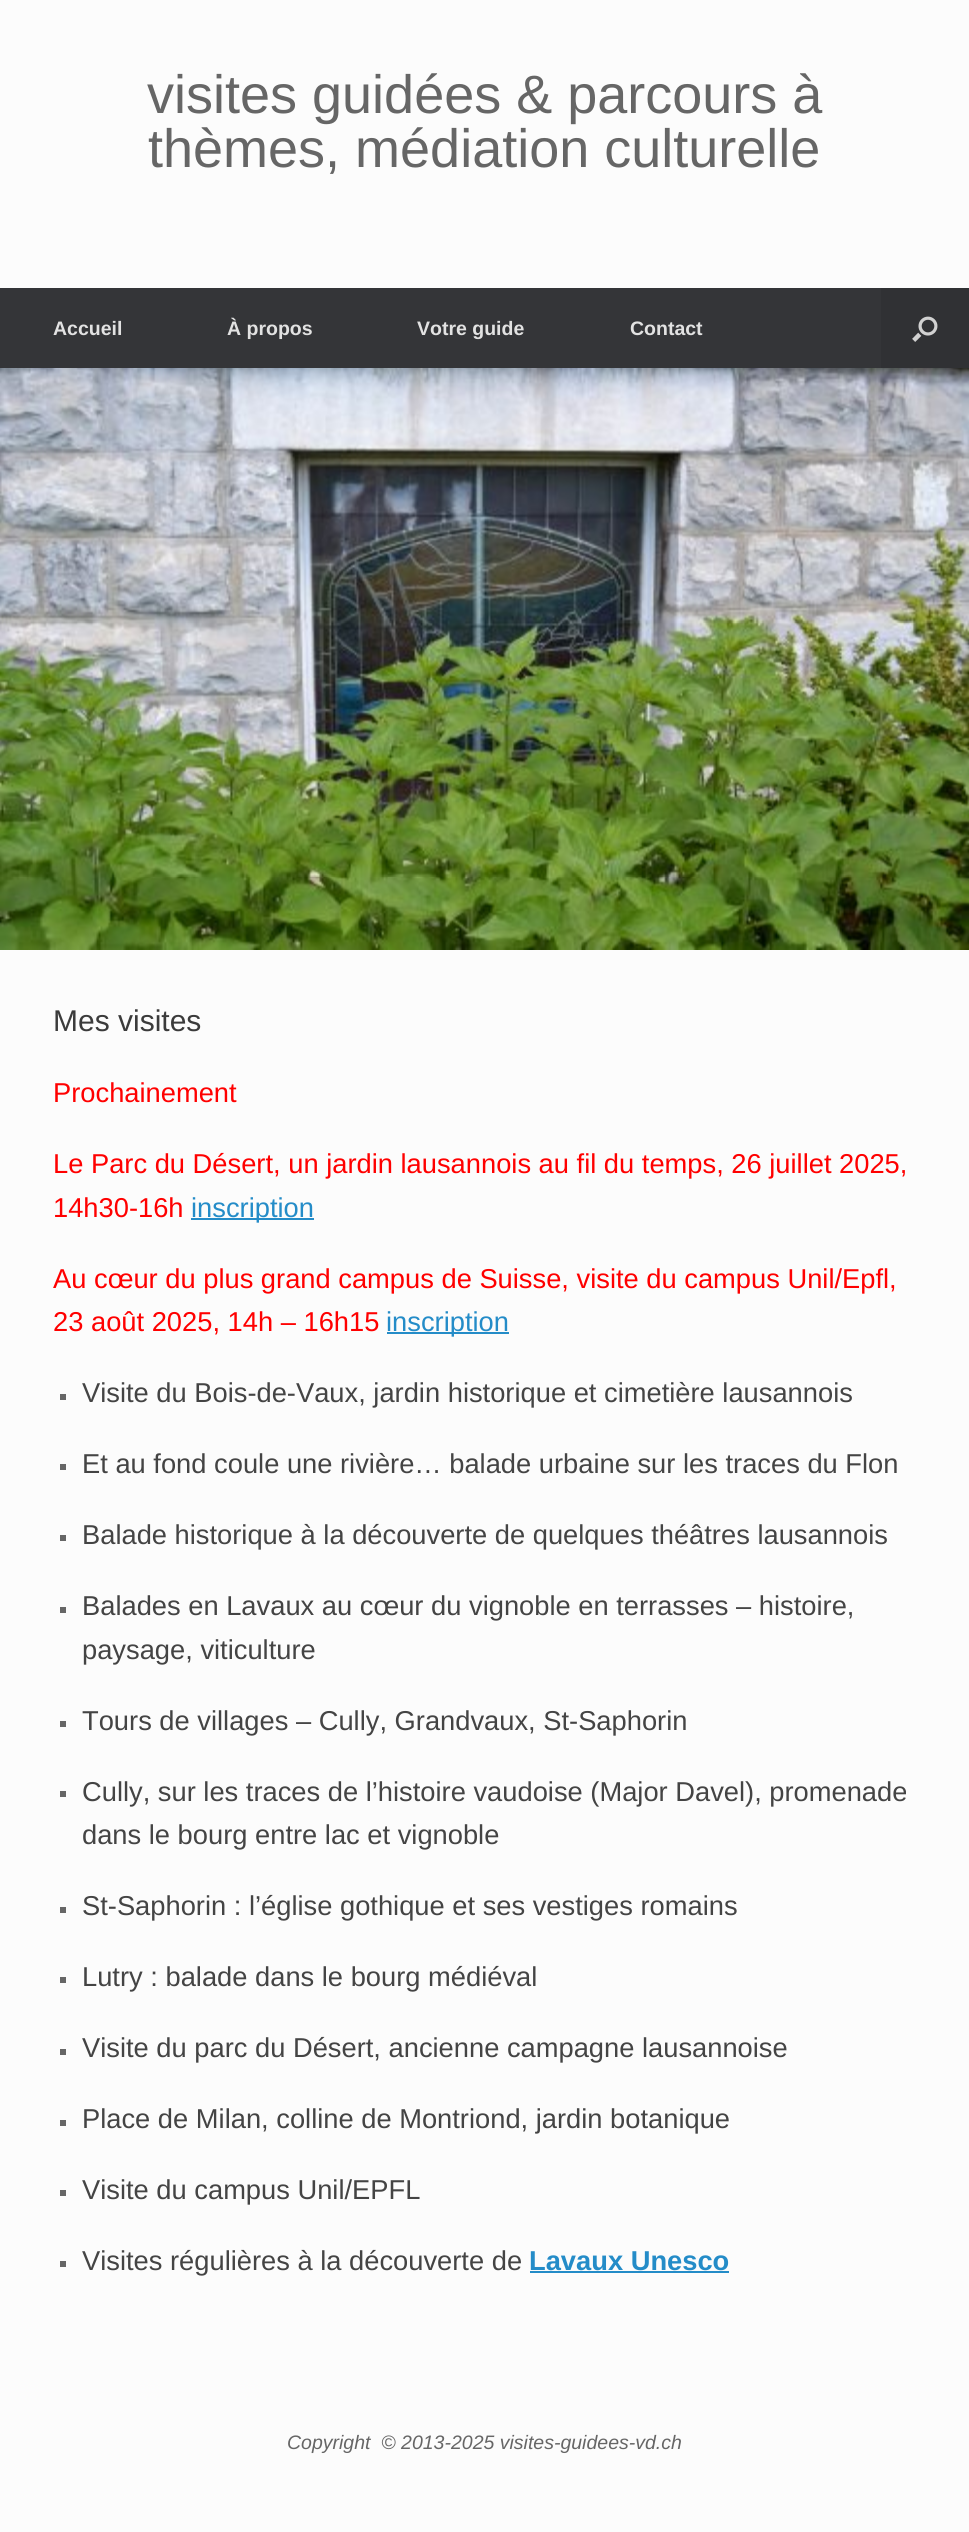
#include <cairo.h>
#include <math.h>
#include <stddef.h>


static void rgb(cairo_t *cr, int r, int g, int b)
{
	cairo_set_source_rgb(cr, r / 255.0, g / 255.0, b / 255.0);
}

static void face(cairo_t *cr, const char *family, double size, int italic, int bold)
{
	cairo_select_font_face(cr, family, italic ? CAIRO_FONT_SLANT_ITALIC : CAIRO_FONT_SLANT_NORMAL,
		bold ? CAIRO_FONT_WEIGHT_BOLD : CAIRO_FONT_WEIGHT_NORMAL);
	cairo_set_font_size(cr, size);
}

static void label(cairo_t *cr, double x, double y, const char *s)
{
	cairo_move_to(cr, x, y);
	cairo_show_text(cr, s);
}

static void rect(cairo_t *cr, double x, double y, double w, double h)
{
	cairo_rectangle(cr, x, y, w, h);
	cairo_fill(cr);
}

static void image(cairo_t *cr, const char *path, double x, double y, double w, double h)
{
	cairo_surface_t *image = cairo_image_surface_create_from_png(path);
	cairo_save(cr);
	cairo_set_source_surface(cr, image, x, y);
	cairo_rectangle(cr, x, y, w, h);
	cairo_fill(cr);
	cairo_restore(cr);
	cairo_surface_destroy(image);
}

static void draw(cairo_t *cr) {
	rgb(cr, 252, 252, 252);
	cairo_paint(cr);
	face(cr, "Liberation Sans", 54, 0, 0);
	rgb(cr, 102, 102, 102);
	label(cr, 147, 113, "visites guidées & parcours à");
	label(cr, 148, 167, "thèmes, médiation culturelle");
	rgb(cr, 52, 53, 56);
	rect(cr, 0, 288, 881, 80);
	face(cr, "Liberation Sans", 19.5, 0, 1);
	rgb(cr, 226, 226, 226);
	label(cr, 53, 335, "Accueil");
	label(cr, 227, 335, "À propos");
	label(cr, 417, 335, "Votre guide");
	label(cr, 630, 335, "Contact");
	rgb(cr, 48, 49, 52);
	rect(cr, 881, 288, 88, 80);
	image(cr, "image0.png", 912, 316, 26, 26);
	image(cr, "image1.png", 0, 368, 969, 582);
	face(cr, "Liberation Sans", 30, 0, 0);
	rgb(cr, 59, 59, 59);
	label(cr, 53, 1031, "Mes visites");
	face(cr, "Liberation Sans", 27.3, 0, 0);
	rgb(cr, 255, 0, 0);
	label(cr, 53, 1102, "Prochainement");
	label(cr, 53, 1173, "Le Parc du Désert, un jardin lausannois au fil du temps, 26 juillet 2025,");
	label(cr, 53, 1217, "14h30-16h");
	rgb(cr, 36, 140, 200);
	rect(cr, 191, 1218, 123, 2);
	label(cr, 191, 1217, "inscription");
	rgb(cr, 255, 0, 0);
	label(cr, 53, 1288, "Au cœur du plus grand campus de Suisse, visite du campus Unil/Epfl,");
	label(cr, 53, 1331, "23 août 2025, 14h – 16h15");
	rgb(cr, 36, 140, 200);
	rect(cr, 387, 1332, 122, 2);
	label(cr, 386, 1331, "inscription");
	rgb(cr, 102, 102, 102);
	rect(cr, 60, 1394, 6, 6);
	rgb(cr, 68, 68, 68);
	label(cr, 82, 1402, "Visite du Bois-de-Vaux, jardin historique et cimetière lausannois");
	rgb(cr, 102, 102, 102);
	rect(cr, 60, 1464, 6, 6);
	rgb(cr, 68, 68, 68);
	label(cr, 82, 1473, "Et au fond coule une rivière… balade urbaine sur les traces du Flon");
	rgb(cr, 102, 102, 102);
	rect(cr, 60, 1535, 6, 6);
	rgb(cr, 68, 68, 68);
	label(cr, 82, 1544, "Balade historique à la découverte de quelques théâtres lausannois");
	rgb(cr, 102, 102, 102);
	rect(cr, 60, 1607, 6, 6);
	rgb(cr, 68, 68, 68);
	label(cr, 82, 1615, "Balades en Lavaux au cœur du vignoble en terrasses – histoire,");
	label(cr, 82, 1659, "paysage, viticulture");
	rgb(cr, 102, 102, 102);
	rect(cr, 60, 1721, 6, 6);
	rgb(cr, 68, 68, 68);
	label(cr, 82, 1730, "Tours de villages – Cully, Grandvaux, St-Saphorin");
	rgb(cr, 102, 102, 102);
	rect(cr, 60, 1791, 6, 6);
	rgb(cr, 68, 68, 68);
	label(cr, 82, 1801, "Cully, sur les traces de l’histoire vaudoise (Major Davel), promenade");
	label(cr, 82, 1844, "dans le bourg entre lac et vignoble");
	rgb(cr, 102, 102, 102);
	rect(cr, 60, 1907, 6, 6);
	rgb(cr, 68, 68, 68);
	label(cr, 82, 1915, "St-Saphorin : l’église gothique et ses vestiges romains");
	rgb(cr, 102, 102, 102);
	rect(cr, 60, 1977, 6, 6);
	rgb(cr, 68, 68, 68);
	label(cr, 82, 1986, "Lutry : balade dans le bourg médiéval");
	rgb(cr, 102, 102, 102);
	rect(cr, 60, 2049, 6, 6);
	rgb(cr, 68, 68, 68);
	label(cr, 82, 2057, "Visite du parc du Désert, ancienne campagne lausannoise");
	rgb(cr, 102, 102, 102);
	rect(cr, 60, 2120, 6, 6);
	rgb(cr, 68, 68, 68);
	label(cr, 82, 2128, "Place de Milan, colline de Montriond, jardin botanique");
	rgb(cr, 102, 102, 102);
	rect(cr, 60, 2190, 6, 6);
	rgb(cr, 68, 68, 68);
	label(cr, 82, 2199, "Visite du campus Unil/EPFL");
	rgb(cr, 102, 102, 102);
	rect(cr, 60, 2261, 6, 6);
	rgb(cr, 68, 68, 68);
	label(cr, 82, 2270, "Visites régulières à la découverte de");
	face(cr, "Liberation Sans", 27.3, 0, 1);
	rgb(cr, 36, 140, 200);
	label(cr, 529, 2270, "Lavaux Unesco");
	rect(cr, 530, 2271, 199, 2);
	face(cr, "Liberation Sans", 19.5, 1, 0);
	rgb(cr, 102, 102, 102);
	label(cr, 287, 2449, "Copyright  © 2013-2025 visites-guidees-vd.ch");
}

int main(void) {
	cairo_surface_t *surface = cairo_image_surface_create(CAIRO_FORMAT_RGB24, 969, 2532);
	cairo_t *cr = cairo_create(surface);
	cairo_font_options_t *options = cairo_font_options_create();
	cairo_font_options_set_hint_metrics(options, CAIRO_HINT_METRICS_OFF);
	cairo_font_options_set_hint_style(options, CAIRO_HINT_STYLE_NONE);
	cairo_set_font_options(cr, options);
	cairo_set_miter_limit(cr, 4);
	draw(cr);
	cairo_surface_write_to_png(surface, "render.png");
	cairo_font_options_destroy(options);
	cairo_destroy(cr);
	cairo_surface_destroy(surface);
	return 0;
}
